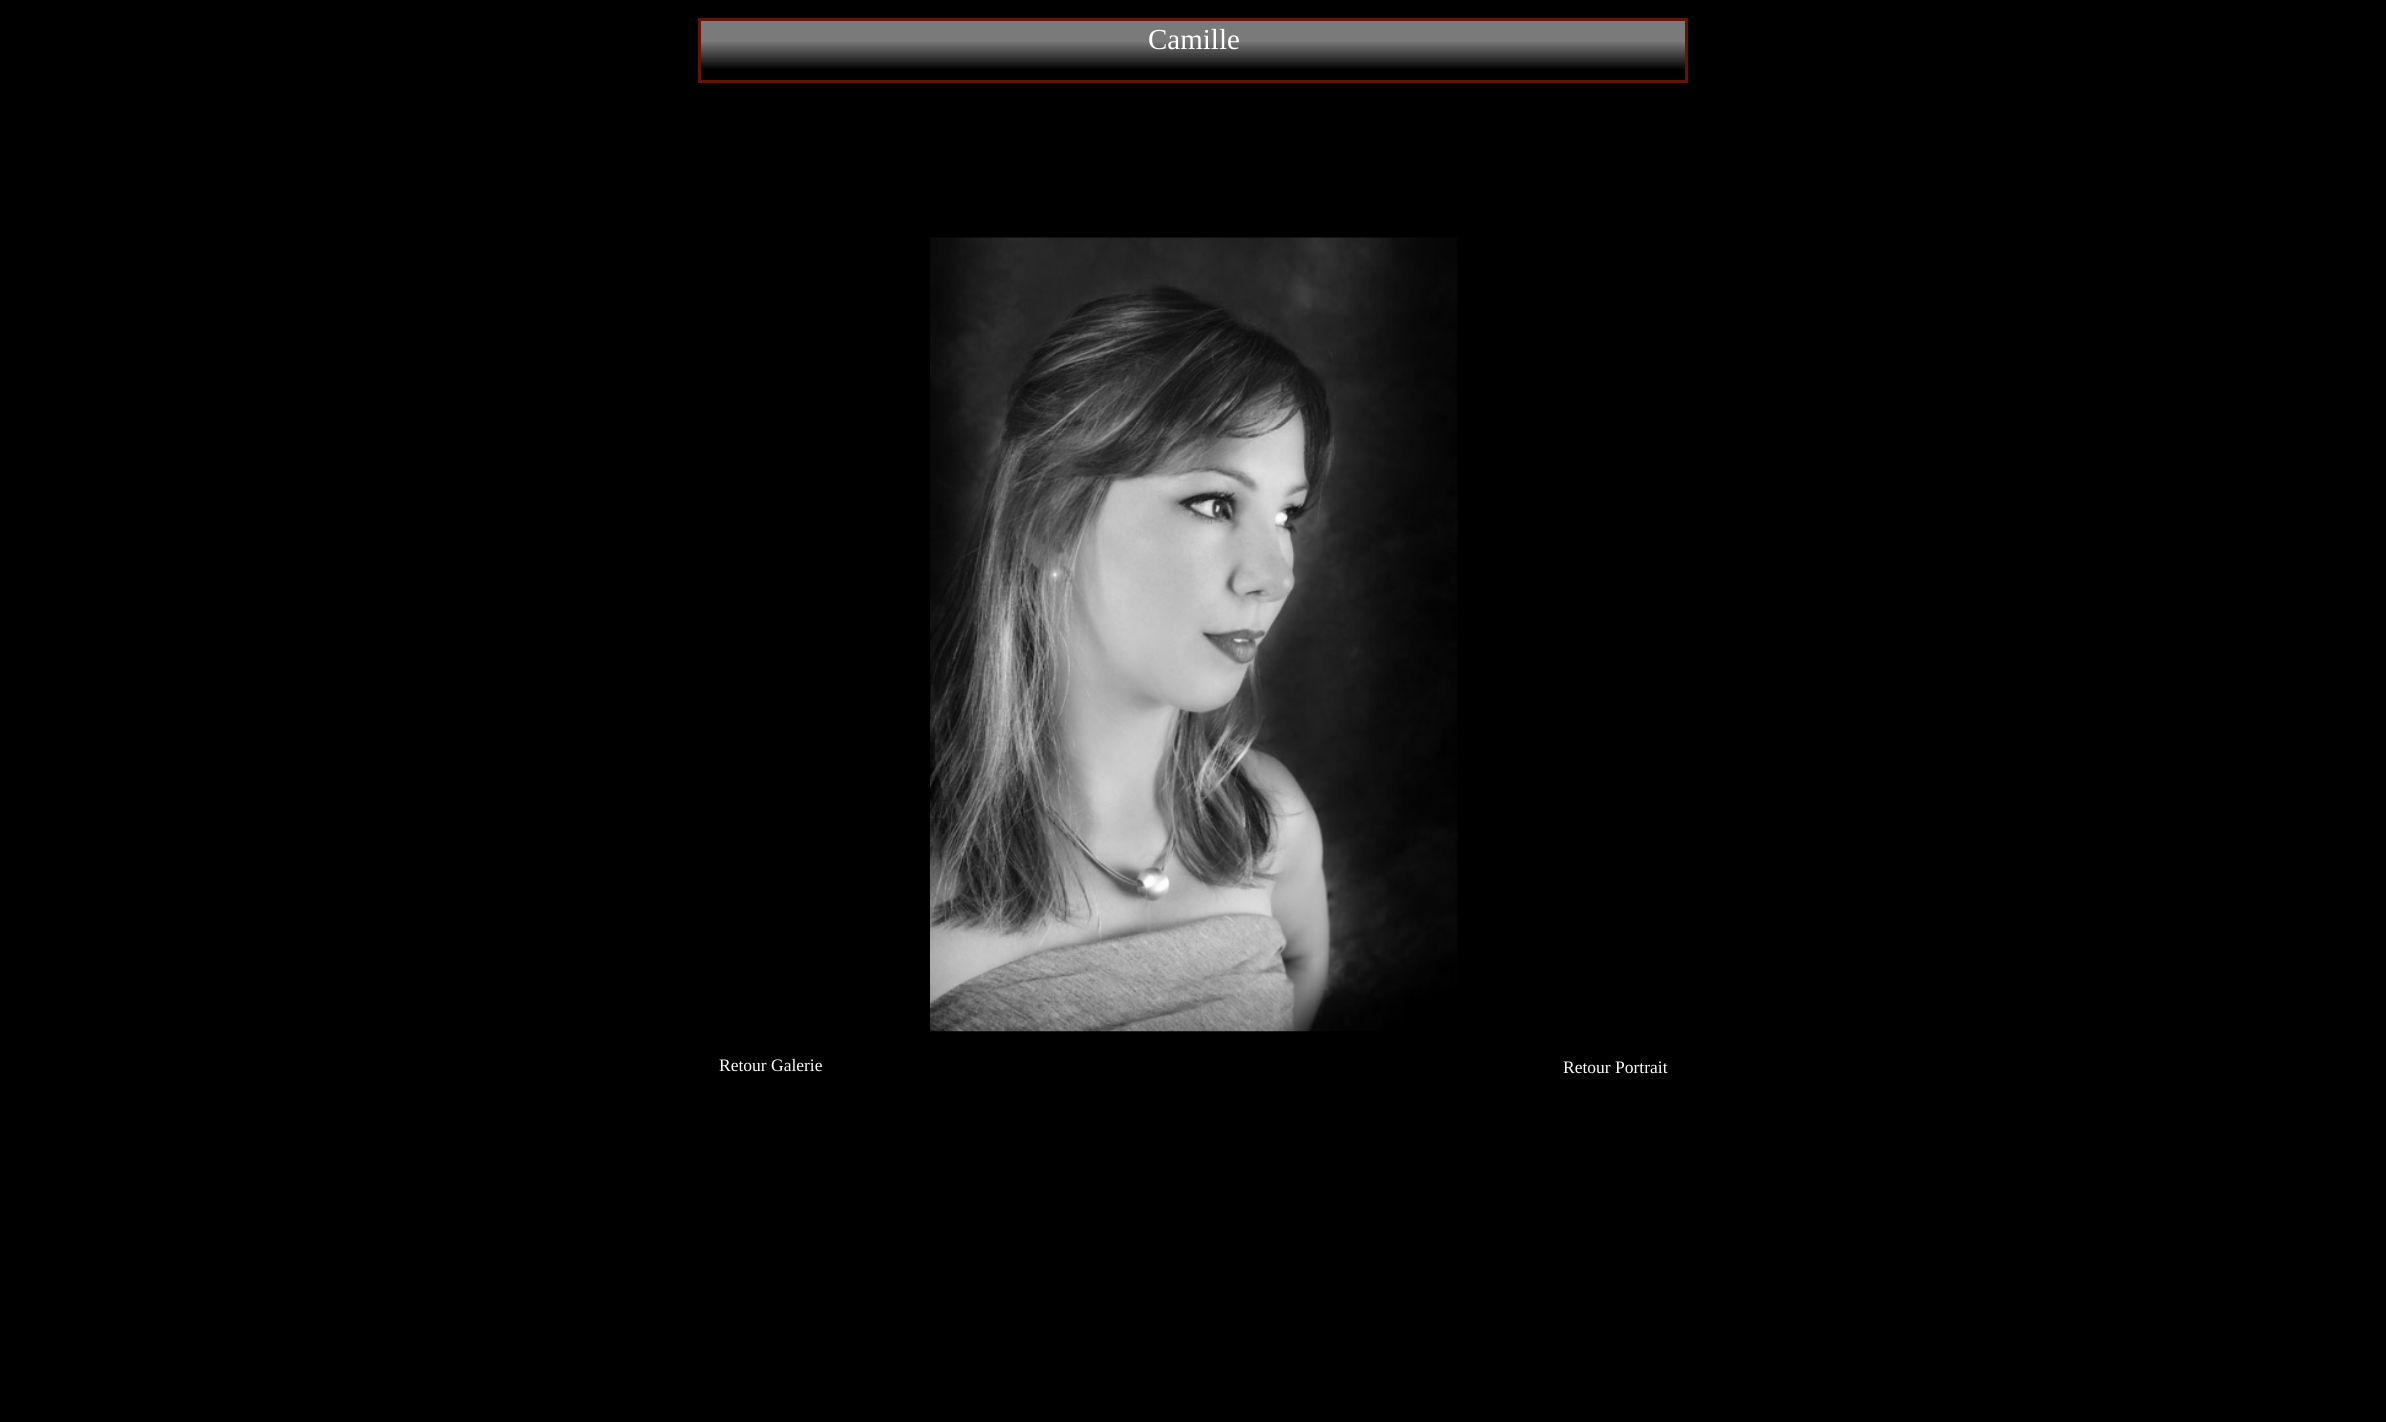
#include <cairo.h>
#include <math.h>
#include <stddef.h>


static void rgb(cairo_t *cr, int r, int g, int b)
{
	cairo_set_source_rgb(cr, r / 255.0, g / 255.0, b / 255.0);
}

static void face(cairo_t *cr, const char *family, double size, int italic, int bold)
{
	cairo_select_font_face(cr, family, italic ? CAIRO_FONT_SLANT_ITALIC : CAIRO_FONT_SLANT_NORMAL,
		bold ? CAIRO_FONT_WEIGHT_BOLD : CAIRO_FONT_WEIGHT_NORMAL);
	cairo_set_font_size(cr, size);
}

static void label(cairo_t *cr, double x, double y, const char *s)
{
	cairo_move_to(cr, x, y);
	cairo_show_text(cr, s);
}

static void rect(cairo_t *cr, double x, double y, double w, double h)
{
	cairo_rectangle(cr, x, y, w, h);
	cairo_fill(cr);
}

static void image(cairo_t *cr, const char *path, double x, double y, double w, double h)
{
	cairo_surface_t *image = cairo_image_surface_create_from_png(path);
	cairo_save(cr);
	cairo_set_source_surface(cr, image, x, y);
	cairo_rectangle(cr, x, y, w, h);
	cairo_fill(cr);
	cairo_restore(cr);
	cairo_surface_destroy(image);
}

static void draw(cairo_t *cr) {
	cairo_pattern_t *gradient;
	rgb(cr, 0, 0, 0);
	cairo_paint(cr);
	gradient = cairo_pattern_create_linear(1170, 70, 1170, 41);
	cairo_pattern_add_color_stop_rgba(gradient, 0, 0, 0, 0, 1);
	cairo_pattern_add_color_stop_rgba(gradient, 1, 0.478, 0.478, 0.478, 1);
	cairo_set_source(cr, gradient);
	cairo_pattern_destroy(gradient);
	rect(cr, 701, 21, 984, 48);
	cairo_rectangle(cr, 699.5, 19.5, 987, 62);
	rgb(cr, 98, 20, 10);
	cairo_set_line_width(cr, 3);
	cairo_stroke(cr);
	face(cr, "Liberation Serif", 29, 0, 0);
	rgb(cr, 255, 255, 255);
	label(cr, 1148, 49, "Camille");
	image(cr, "image0.png", 930, 237, 528, 795);
	face(cr, "Liberation Serif", 17.5, 0, 0);
	label(cr, 719, 1071, "Retour Galerie");
	label(cr, 1563, 1073, "Retour Portrait");
}

int main(void) {
	cairo_surface_t *surface = cairo_image_surface_create(CAIRO_FORMAT_RGB24, 2386, 1422);
	cairo_t *cr = cairo_create(surface);
	cairo_font_options_t *options = cairo_font_options_create();
	cairo_font_options_set_hint_metrics(options, CAIRO_HINT_METRICS_OFF);
	cairo_font_options_set_hint_style(options, CAIRO_HINT_STYLE_NONE);
	cairo_set_font_options(cr, options);
	cairo_set_miter_limit(cr, 4);
	draw(cr);
	cairo_surface_write_to_png(surface, "render.png");
	cairo_font_options_destroy(options);
	cairo_destroy(cr);
	cairo_surface_destroy(surface);
	return 0;
}
